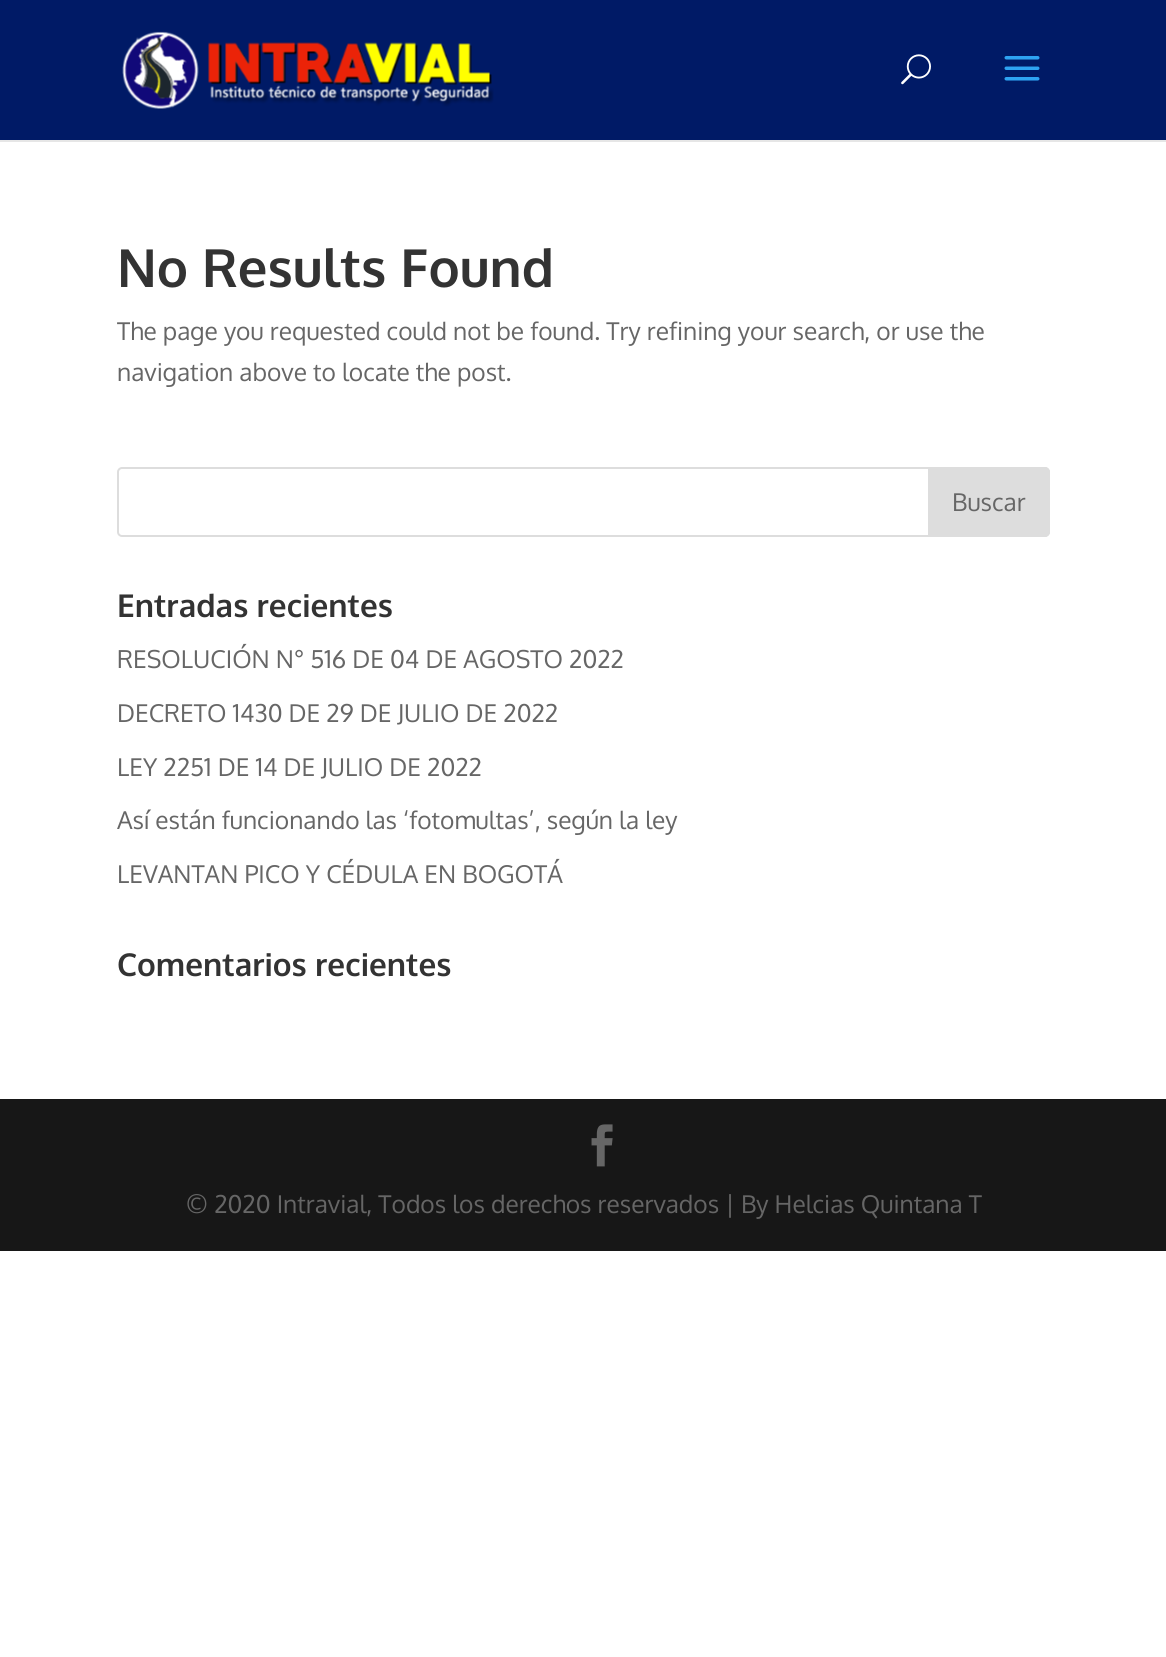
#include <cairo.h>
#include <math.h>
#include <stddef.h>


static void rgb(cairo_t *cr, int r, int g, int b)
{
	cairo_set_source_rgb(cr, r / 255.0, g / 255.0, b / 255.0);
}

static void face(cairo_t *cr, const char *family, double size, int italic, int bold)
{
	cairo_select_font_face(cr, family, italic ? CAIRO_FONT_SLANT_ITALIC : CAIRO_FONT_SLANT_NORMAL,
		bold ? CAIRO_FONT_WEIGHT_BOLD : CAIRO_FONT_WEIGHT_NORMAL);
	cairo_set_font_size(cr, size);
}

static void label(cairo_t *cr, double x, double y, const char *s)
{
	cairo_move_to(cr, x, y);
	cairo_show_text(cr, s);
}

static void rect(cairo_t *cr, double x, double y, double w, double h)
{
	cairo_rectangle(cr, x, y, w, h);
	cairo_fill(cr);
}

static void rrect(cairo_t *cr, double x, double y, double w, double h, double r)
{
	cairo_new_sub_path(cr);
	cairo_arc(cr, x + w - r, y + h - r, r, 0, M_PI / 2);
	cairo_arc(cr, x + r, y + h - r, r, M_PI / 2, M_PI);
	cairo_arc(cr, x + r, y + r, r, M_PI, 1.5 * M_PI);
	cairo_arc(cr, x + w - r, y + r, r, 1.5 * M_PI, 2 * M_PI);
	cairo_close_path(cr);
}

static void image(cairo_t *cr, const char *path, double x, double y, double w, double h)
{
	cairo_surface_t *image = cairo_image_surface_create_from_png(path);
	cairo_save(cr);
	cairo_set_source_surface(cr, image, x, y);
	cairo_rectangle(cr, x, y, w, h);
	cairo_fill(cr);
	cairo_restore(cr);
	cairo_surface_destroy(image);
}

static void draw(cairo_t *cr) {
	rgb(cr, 255, 255, 255);
	cairo_paint(cr);
	rgb(cr, 230, 230, 230);
	rect(cr, 0, 140, 1166, 2);
	rgb(cr, 0, 26, 102);
	rect(cr, 0, 0, 1166, 140);
	image(cr, "image0.png", 122, 31, 372, 78);
	image(cr, "image1.png", 901, 54, 30, 31);
	image(cr, "image2.png", 1004, 56, 36, 25);
	face(cr, "Oxygen", 52.5, 0, 1);
	rgb(cr, 51, 51, 51);
	label(cr, 117, 287, "No Results Found");
	face(cr, "Oxygen", 24.5, 0, 0);
	rgb(cr, 102, 102, 102);
	label(cr, 117, 340, "The page you requested could not be found. Try refining your search, or use the");
	label(cr, 117, 381, "navigation above to locate the post.");
	rrect(cr, 118, 468, 931, 68, 4);
	rgb(cr, 221, 221, 221);
	cairo_stroke(cr);
	cairo_new_path(cr);
	cairo_move_to(cr, 929, 468);
	cairo_line_to(cr, 1045, 468);
	cairo_curve_to(cr, 1047, 468, 1049, 470, 1049, 472);
	cairo_line_to(cr, 1049, 532);
	cairo_curve_to(cr, 1049, 534, 1047, 536, 1045, 536);
	cairo_line_to(cr, 929, 536);
	cairo_close_path(cr);
	cairo_fill_preserve(cr);
	cairo_stroke(cr);
	rgb(cr, 102, 102, 102);
	label(cr, 952, 511, "Buscar");
	face(cr, "Oxygen", 31.5, 0, 1);
	rgb(cr, 51, 51, 51);
	label(cr, 117, 617, "Entradas recientes");
	face(cr, "Oxygen", 24.5, 0, 0);
	rgb(cr, 102, 102, 102);
	label(cr, 117, 668, "RESOLUCIÓN N° 516 DE 04 DE AGOSTO 2022");
	label(cr, 117, 722, "DECRETO 1430 DE 29 DE JULIO DE 2022");
	label(cr, 117, 776, "LEY 2251 DE 14 DE JULIO DE 2022");
	label(cr, 117, 829, "Así están funcionando las ‘fotomultas’, según la ley");
	label(cr, 117, 883, "LEVANTAN PICO Y CÉDULA EN BOGOTÁ");
	face(cr, "Oxygen", 31.5, 0, 1);
	rgb(cr, 51, 51, 51);
	label(cr, 117, 976, "Comentarios recientes");
	rgb(cr, 23, 23, 23);
	rect(cr, 0, 1099, 1166, 152);
	image(cr, "image3.png", 591, 1124, 22, 43);
	face(cr, "Oxygen", 24.5, 0, 0);
	rgb(cr, 102, 102, 102);
	label(cr, 186, 1213, "© 2020 Intravial, Todos los derechos reservados | By Helcias Quintana T");
}

int main(void) {
	cairo_surface_t *surface = cairo_image_surface_create(CAIRO_FORMAT_RGB24, 1166, 1657);
	cairo_t *cr = cairo_create(surface);
	cairo_font_options_t *options = cairo_font_options_create();
	cairo_font_options_set_hint_metrics(options, CAIRO_HINT_METRICS_OFF);
	cairo_font_options_set_hint_style(options, CAIRO_HINT_STYLE_NONE);
	cairo_set_font_options(cr, options);
	cairo_set_miter_limit(cr, 4);
	draw(cr);
	cairo_surface_write_to_png(surface, "render.png");
	cairo_font_options_destroy(options);
	cairo_destroy(cr);
	cairo_surface_destroy(surface);
	return 0;
}
